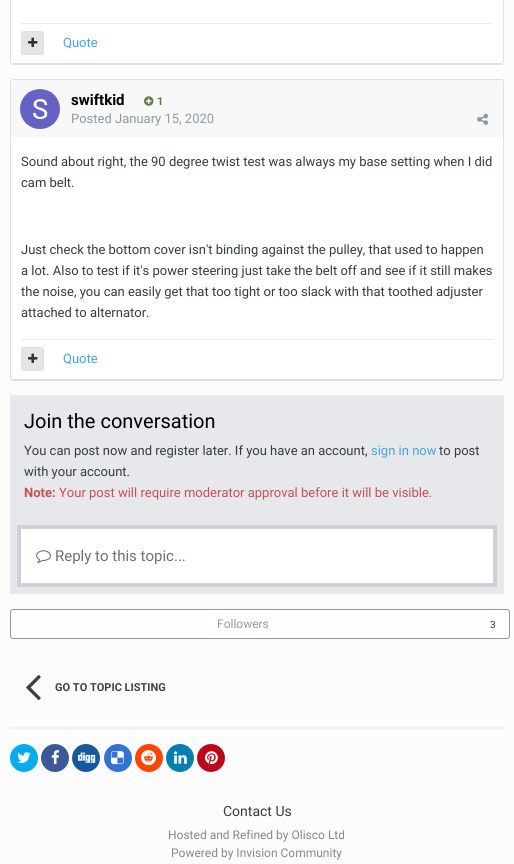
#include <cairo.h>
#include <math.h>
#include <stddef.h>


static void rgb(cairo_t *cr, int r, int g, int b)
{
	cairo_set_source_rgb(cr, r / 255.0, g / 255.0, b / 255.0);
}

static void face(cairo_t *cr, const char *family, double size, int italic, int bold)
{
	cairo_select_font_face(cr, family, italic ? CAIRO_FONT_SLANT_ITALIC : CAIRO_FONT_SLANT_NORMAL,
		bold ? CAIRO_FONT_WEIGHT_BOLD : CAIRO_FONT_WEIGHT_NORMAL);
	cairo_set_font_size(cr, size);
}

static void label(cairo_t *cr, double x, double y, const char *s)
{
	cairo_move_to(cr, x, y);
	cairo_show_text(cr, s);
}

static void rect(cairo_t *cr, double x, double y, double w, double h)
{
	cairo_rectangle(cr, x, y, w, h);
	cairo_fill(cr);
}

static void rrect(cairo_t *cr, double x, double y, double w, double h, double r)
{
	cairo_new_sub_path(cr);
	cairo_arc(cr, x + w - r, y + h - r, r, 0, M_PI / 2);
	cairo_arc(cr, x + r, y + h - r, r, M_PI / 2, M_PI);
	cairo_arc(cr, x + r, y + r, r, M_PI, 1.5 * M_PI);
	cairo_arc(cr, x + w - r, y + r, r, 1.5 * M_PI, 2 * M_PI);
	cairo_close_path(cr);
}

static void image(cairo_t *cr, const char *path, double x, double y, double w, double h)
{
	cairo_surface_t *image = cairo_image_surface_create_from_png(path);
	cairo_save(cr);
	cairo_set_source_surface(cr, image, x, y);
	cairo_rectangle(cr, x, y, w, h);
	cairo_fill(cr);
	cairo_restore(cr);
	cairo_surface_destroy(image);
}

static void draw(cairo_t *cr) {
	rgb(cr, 252, 252, 252);
	cairo_paint(cr);
	rgb(cr, 227, 227, 227);
	cairo_new_path(cr);
	cairo_move_to(cr, 10, 61);
	cairo_curve_to(cr, 10, 63, 11, 65, 13, 65);
	cairo_line_to(cr, 501, 65);
	cairo_curve_to(cr, 503, 65, 504, 63, 504, 61);
	cairo_curve_to(cr, 504, 63, 503, 64, 501, 64);
	cairo_line_to(cr, 13, 64);
	cairo_curve_to(cr, 11, 64, 10, 63, 10, 61);
	cairo_close_path(cr);
	cairo_fill(cr);
	rgb(cr, 255, 255, 255);
	rrect(cr, 10.5, -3.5, 493, 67, 2.5);
	cairo_fill_preserve(cr);
	rgb(cr, 224, 224, 224);
	cairo_set_line_width(cr, 1);
	cairo_stroke(cr);
	rgb(cr, 236, 236, 236);
	rect(cr, 21, 23, 472, 1);
	rgb(cr, 229, 229, 229);
	rrect(cr, 21, 31, 23, 24, 3);
	cairo_fill(cr);
	cairo_rectangle(cr, 21.5, 31.5, 22, 23);
	cairo_set_source_rgba(cr, 0, 0, 0, 0.03);
	cairo_stroke(cr);
	image(cr, "image0.png", 28, 37, 10, 10);
	face(cr, "Roboto", 13, 0, 0);
	rgb(cr, 67, 166, 223);
	label(cr, 63, 47, "Quote");
	rgb(cr, 227, 227, 227);
	cairo_new_path(cr);
	cairo_move_to(cr, 10, 377);
	cairo_curve_to(cr, 10, 379, 11, 381, 13, 381);
	cairo_line_to(cr, 501, 381);
	cairo_curve_to(cr, 503, 381, 504, 379, 504, 377);
	cairo_curve_to(cr, 504, 379, 503, 380, 501, 380);
	cairo_line_to(cr, 13, 380);
	cairo_curve_to(cr, 11, 380, 10, 379, 10, 377);
	cairo_close_path(cr);
	cairo_fill(cr);
	rgb(cr, 255, 255, 255);
	rrect(cr, 10.5, 79.5, 493, 300, 2.5);
	cairo_fill_preserve(cr);
	rgb(cr, 224, 224, 224);
	cairo_stroke(cr);
	rgb(cr, 248, 248, 248);
	rect(cr, 11, 80, 492, 57);
	rgb(cr, 255, 255, 255);
	cairo_arc(cr, 40, 109, 20, 0, 2 * M_PI);
	cairo_fill(cr);
	image(cr, "image1.png", 20, 89, 40, 40);
	face(cr, "Roboto", 15, 0, 1);
	rgb(cr, 0, 0, 0);
	label(cr, 71, 105, "swiftkid");
	image(cr, "image2.png", 144, 96, 10, 10);
	face(cr, "Roboto", 11, 0, 1);
	rgb(cr, 95, 122, 71);
	label(cr, 157, 105, "1");
	face(cr, "Roboto", 13, 0, 0);
	rgb(cr, 141, 154, 166);
	label(cr, 71, 123, "Posted January 15, 2020");
	image(cr, "image3.png", 477, 113, 12, 12);
	rgb(cr, 53, 60, 65);
	label(cr, 21, 166, "Sound about right, the 90 degree twist test was always my base setting when I did");
	label(cr, 21, 187, "cam belt.");
	label(cr, 21, 254, "Just check the bottom cover isn't binding against the pulley, that used to happen");
	label(cr, 21, 275, "a lot. Also to test if it's power steering just take the belt off and see if it still makes");
	label(cr, 21, 296, "the noise, you can easily get that too tight or too slack with that toothed adjuster");
	label(cr, 21, 317, "attached to alternator.");
	rgb(cr, 236, 236, 236);
	rect(cr, 21, 339, 472, 1);
	rgb(cr, 229, 229, 229);
	rrect(cr, 21, 347, 23, 24, 3);
	cairo_fill(cr);
	cairo_rectangle(cr, 21.5, 347.5, 22, 23);
	cairo_set_source_rgba(cr, 0, 0, 0, 0.03);
	cairo_stroke(cr);
	image(cr, "image0.png", 28, 353, 10, 10);
	rgb(cr, 67, 166, 223);
	label(cr, 63, 363, "Quote");
	rgb(cr, 230, 232, 235);
	rect(cr, 10, 395, 494, 199);
	face(cr, "Roboto", 20, 0, 0);
	rgb(cr, 0, 0, 0);
	label(cr, 24, 428, "Join the conversation");
	face(cr, "Roboto", 13, 0, 0);
	rgb(cr, 53, 60, 65);
	label(cr, 24, 455, "You can post now and register later. If you have an account,");
	rgb(cr, 67, 166, 223);
	label(cr, 371, 455, "sign in now");
	rgb(cr, 53, 60, 65);
	label(cr, 439, 455, "to post");
	label(cr, 24, 476, "with your account.");
	face(cr, "Roboto", 13, 0, 1);
	rgb(cr, 199, 80, 80);
	label(cr, 24, 497, "Note:");
	face(cr, "Roboto", 13, 0, 0);
	label(cr, 59, 497, "Your post will require moderator approval before it will be visible.");
	rgb(cr, 207, 209, 212);
	rect(cr, 17, 525, 480, 62);
	rgb(cr, 255, 255, 255);
	rect(cr, 21, 529, 472, 54);
	image(cr, "image4.png", 36, 550, 15, 14);
	face(cr, "Roboto", 15, 0, 0);
	rgb(cr, 112, 112, 112);
	label(cr, 55, 561, "Reply to this topic...");
	rgb(cr, 255, 255, 255);
	rrect(cr, 10.5, 609.5, 499, 29, 2.5);
	cairo_fill_preserve(cr);
	rgb(cr, 141, 154, 166);
	cairo_stroke(cr);
	face(cr, "Roboto", 12, 0, 0);
	label(cr, 217, 628, "Followers");
	face(cr, "Roboto", 10, 0, 0);
	rgb(cr, 51, 51, 51);
	label(cr, 490, 628, "3");
	image(cr, "image5.png", 26, 675, 15, 25);
	face(cr, "Roboto", 11, 0, 1);
	rgb(cr, 64, 64, 64);
	label(cr, 55, 691, "GO TO TOPIC LISTING");
	rgb(cr, 239, 239, 239);
	rect(cr, 10, 727, 494, 2);
	rgb(cr, 0, 172, 237);
	cairo_new_path(cr);
	cairo_arc(cr, 24, 758, 14, 0, 2 * M_PI);
	cairo_fill(cr);
	image(cr, "image6.png", 17, 752, 14, 11);
	rgb(cr, 59, 89, 152);
	cairo_arc(cr, 55, 758, 14, 0, 2 * M_PI);
	cairo_fill(cr);
	image(cr, "image7.png", 51, 750, 9, 15);
	rgb(cr, 20, 88, 158);
	cairo_arc(cr, 86, 758, 14, 0, 2 * M_PI);
	cairo_fill(cr);
	image(cr, "image8.png", 78, 752, 18, 11);
	rgb(cr, 50, 116, 209);
	cairo_arc(cr, 118, 758, 14, 0, 2 * M_PI);
	cairo_fill(cr);
	image(cr, "image9.png", 111, 751, 13, 14);
	rgb(cr, 255, 69, 0);
	cairo_arc(cr, 149, 758, 14, 0, 2 * M_PI);
	cairo_fill(cr);
	image(cr, "image10.png", 141, 750, 15, 16);
	rgb(cr, 0, 127, 177);
	cairo_arc(cr, 180, 758, 14, 0, 2 * M_PI);
	cairo_fill(cr);
	image(cr, "image11.png", 174, 751, 13, 13);
	rgb(cr, 189, 8, 28);
	cairo_arc(cr, 211, 758, 14, 0, 2 * M_PI);
	cairo_fill(cr);
	image(cr, "image12.png", 205, 751, 13, 14);
	face(cr, "Roboto", 14, 0, 0);
	rgb(cr, 53, 60, 65);
	label(cr, 223, 816, "Contact Us");
	face(cr, "Roboto", 12, 0, 0);
	rgb(cr, 133, 137, 140);
	label(cr, 168, 839, "Hosted and Refined by Olisco Ltd");
	label(cr, 171, 857, "Powered by Invision Community");
}

int main(void) {
	cairo_surface_t *surface = cairo_image_surface_create(CAIRO_FORMAT_RGB24, 514, 864);
	cairo_t *cr = cairo_create(surface);
	cairo_font_options_t *options = cairo_font_options_create();
	cairo_font_options_set_hint_metrics(options, CAIRO_HINT_METRICS_OFF);
	cairo_font_options_set_hint_style(options, CAIRO_HINT_STYLE_NONE);
	cairo_set_font_options(cr, options);
	cairo_set_miter_limit(cr, 4);
	draw(cr);
	cairo_surface_write_to_png(surface, "render.png");
	cairo_font_options_destroy(options);
	cairo_destroy(cr);
	cairo_surface_destroy(surface);
	return 0;
}
